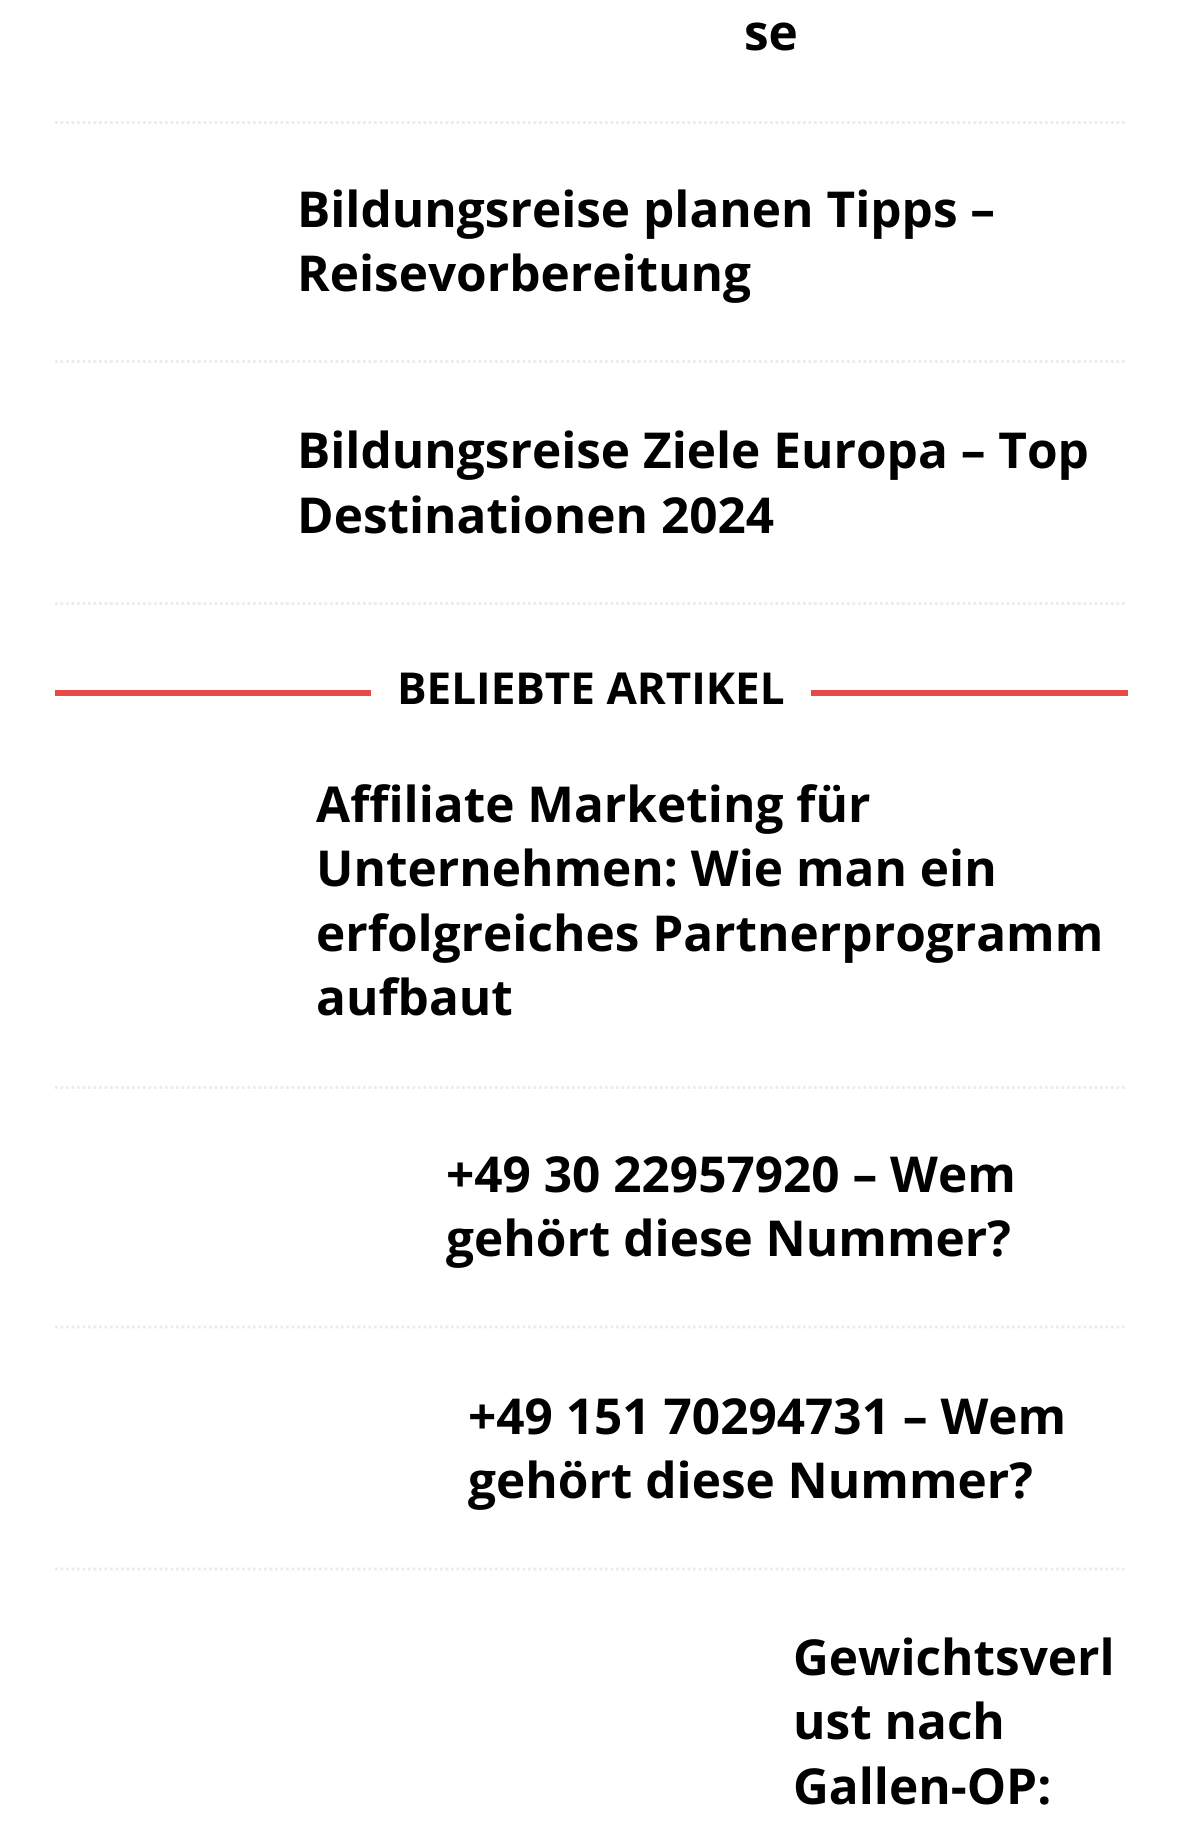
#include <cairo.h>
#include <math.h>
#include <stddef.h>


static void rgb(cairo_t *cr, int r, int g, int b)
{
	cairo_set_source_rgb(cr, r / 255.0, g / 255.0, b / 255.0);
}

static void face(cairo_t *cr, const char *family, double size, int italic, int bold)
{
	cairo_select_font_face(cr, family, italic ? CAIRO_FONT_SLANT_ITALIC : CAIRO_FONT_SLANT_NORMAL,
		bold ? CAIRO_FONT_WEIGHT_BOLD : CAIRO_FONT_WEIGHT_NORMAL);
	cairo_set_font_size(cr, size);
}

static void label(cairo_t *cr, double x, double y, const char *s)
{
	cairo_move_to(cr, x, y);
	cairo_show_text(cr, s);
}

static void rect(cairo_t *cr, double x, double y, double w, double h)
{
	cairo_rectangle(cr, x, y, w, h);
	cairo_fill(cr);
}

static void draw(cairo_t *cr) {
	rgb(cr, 255, 255, 255);
	cairo_paint(cr);
	cairo_new_path(cr);
	cairo_move_to(cr, 55, 122.5);
	cairo_line_to(cr, 1127.5, 122.5);
	rgb(cr, 235, 235, 235);
	cairo_set_line_width(cr, 2.8);
	cairo_set_dash(cr, (double[]){2.75, 2.75}, 2, 0);
	cairo_stroke(cr);
	face(cr, "Open Sans", 49.5, 0, 1);
	rgb(cr, 0, 0, 0);
	label(cr, 744, 50, "se");
	cairo_new_path(cr);
	cairo_move_to(cr, 55, 361.5);
	cairo_line_to(cr, 1127.5, 361.5);
	rgb(cr, 235, 235, 235);
	cairo_stroke(cr);
	rgb(cr, 0, 0, 0);
	label(cr, 297, 227, "Bildungsreise planen Tipps –");
	label(cr, 297, 291, "Reisevorbereitung");
	cairo_new_path(cr);
	cairo_move_to(cr, 55, 603.5);
	cairo_line_to(cr, 1127.5, 603.5);
	rgb(cr, 235, 235, 235);
	cairo_stroke(cr);
	rgb(cr, 0, 0, 0);
	label(cr, 297, 468, "Bildungsreise Ziele Europa – Top");
	label(cr, 297, 533, "Destinationen 2024");
	rgb(cr, 230, 73, 70);
	rect(cr, 55, 690, 1073, 6);
	rgb(cr, 255, 255, 255);
	rect(cr, 371, 690, 440, 6);
	face(cr, "Open Sans", 44, 0, 1);
	rgb(cr, 0, 0, 0);
	label(cr, 397, 704, "BELIEBTE ARTIKEL");
	cairo_new_path(cr);
	cairo_move_to(cr, 55, 1087.5);
	cairo_line_to(cr, 1127.5, 1087.5);
	rgb(cr, 235, 235, 235);
	cairo_stroke(cr);
	face(cr, "Open Sans", 49.5, 0, 1);
	rgb(cr, 0, 0, 0);
	label(cr, 316, 822, "Affiliate Marketing für");
	label(cr, 316, 886, "Unternehmen: Wie man ein");
	label(cr, 316, 951, "erfolgreiches Partnerprogramm");
	label(cr, 316, 1015, "aufbaut");
	cairo_new_path(cr);
	cairo_move_to(cr, 55, 1327);
	cairo_line_to(cr, 1127.5, 1327);
	rgb(cr, 235, 235, 235);
	cairo_stroke(cr);
	rgb(cr, 0, 0, 0);
	label(cr, 446, 1192, "+49 30 22957920 – Wem");
	label(cr, 446, 1256, "gehört diese Nummer?");
	cairo_new_path(cr);
	cairo_move_to(cr, 55, 1569);
	cairo_line_to(cr, 1127.5, 1569);
	rgb(cr, 235, 235, 235);
	cairo_stroke(cr);
	rgb(cr, 0, 0, 0);
	label(cr, 468, 1434, "+49 151 70294731 – Wem");
	label(cr, 468, 1498, "gehört diese Nummer?");
	label(cr, 793, 1675, "Gewichtsverl");
	label(cr, 793, 1739, "ust nach");
	label(cr, 793, 1804, "Gallen-OP:");
}

int main(void) {
	cairo_surface_t *surface = cairo_image_surface_create(CAIRO_FORMAT_RGB24, 1180, 1842);
	cairo_t *cr = cairo_create(surface);
	cairo_font_options_t *options = cairo_font_options_create();
	cairo_font_options_set_hint_metrics(options, CAIRO_HINT_METRICS_OFF);
	cairo_font_options_set_hint_style(options, CAIRO_HINT_STYLE_NONE);
	cairo_set_font_options(cr, options);
	cairo_set_miter_limit(cr, 4);
	draw(cr);
	cairo_surface_write_to_png(surface, "render.png");
	cairo_font_options_destroy(options);
	cairo_destroy(cr);
	cairo_surface_destroy(surface);
	return 0;
}
